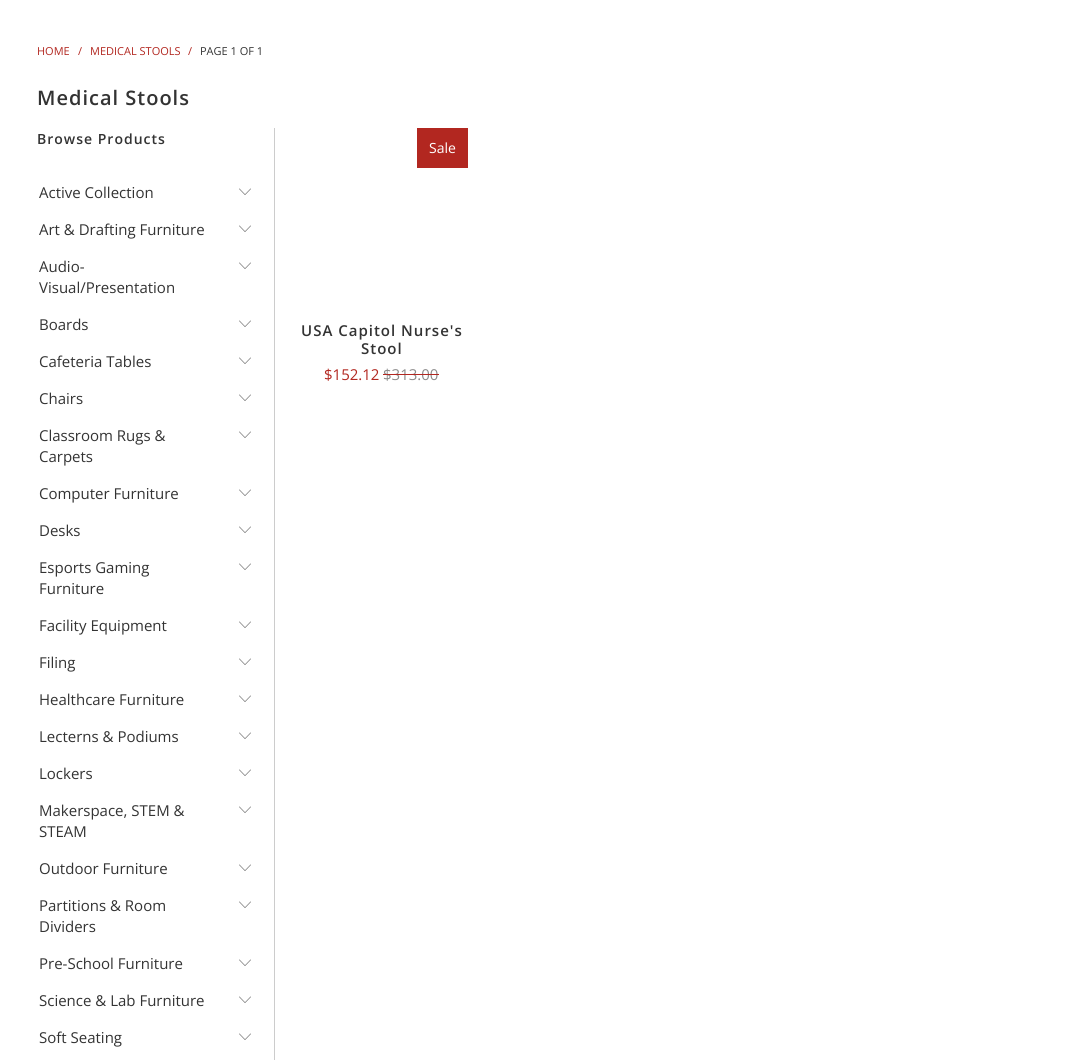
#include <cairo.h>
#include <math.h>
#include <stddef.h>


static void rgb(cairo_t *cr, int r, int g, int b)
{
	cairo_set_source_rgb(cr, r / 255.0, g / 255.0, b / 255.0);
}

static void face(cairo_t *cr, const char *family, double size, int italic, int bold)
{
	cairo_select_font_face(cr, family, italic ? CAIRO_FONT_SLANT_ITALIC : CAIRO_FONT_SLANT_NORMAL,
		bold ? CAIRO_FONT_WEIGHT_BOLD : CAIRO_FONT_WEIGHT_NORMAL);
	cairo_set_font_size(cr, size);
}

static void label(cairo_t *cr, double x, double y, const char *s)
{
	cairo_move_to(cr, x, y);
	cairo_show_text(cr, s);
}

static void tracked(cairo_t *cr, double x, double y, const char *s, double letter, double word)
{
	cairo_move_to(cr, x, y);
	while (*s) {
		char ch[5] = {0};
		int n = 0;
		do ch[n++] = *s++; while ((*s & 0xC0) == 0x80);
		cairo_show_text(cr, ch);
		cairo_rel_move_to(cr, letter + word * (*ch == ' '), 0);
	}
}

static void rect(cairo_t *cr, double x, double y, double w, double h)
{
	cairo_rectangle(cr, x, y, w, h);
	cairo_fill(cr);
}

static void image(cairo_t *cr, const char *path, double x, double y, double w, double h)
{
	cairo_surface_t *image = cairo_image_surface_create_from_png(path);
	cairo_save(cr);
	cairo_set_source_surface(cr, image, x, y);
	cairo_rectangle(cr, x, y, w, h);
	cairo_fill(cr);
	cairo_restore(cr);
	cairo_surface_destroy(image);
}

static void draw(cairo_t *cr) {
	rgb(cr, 255, 255, 255);
	cairo_paint(cr);
	face(cr, "Open Sans", 11, 0, 0);
	rgb(cr, 178, 39, 32);
	label(cr, 37, 55, "HOME");
	label(cr, 78, 55, "/");
	label(cr, 90, 55, "MEDICAL STOOLS");
	label(cr, 188, 55, "/");
	rgb(cr, 51, 51, 51);
	label(cr, 200, 55, "PAGE 1 OF 1");
	face(cr, "Open Sans SemiBold", 20, 0, 0);
	tracked(cr, 37, 105, "Medical Stools", 1, 0);
	rgb(cr, 204, 204, 204);
	rect(cr, 274, 128, 1, 932);
	face(cr, "Open Sans SemiBold", 14, 0, 0);
	rgb(cr, 51, 51, 51);
	tracked(cr, 37, 144, "Browse Products", 1, 0);
	face(cr, "Open Sans", 15, 0, 0);
	label(cr, 39, 198, "Active Collection");
	image(cr, "image0.png", 239, 188, 12, 7);
	label(cr, 39, 235, "Art & Drafting Furniture");
	image(cr, "image0.png", 239, 225, 12, 7);
	label(cr, 39, 272, "Audio-");
	label(cr, 39, 293, "Visual/Presentation");
	image(cr, "image0.png", 239, 262, 12, 7);
	label(cr, 39, 330, "Boards");
	image(cr, "image0.png", 239, 320, 12, 7);
	label(cr, 39, 367, "Cafeteria Tables");
	image(cr, "image0.png", 239, 357, 12, 7);
	label(cr, 39, 404, "Chairs");
	image(cr, "image0.png", 239, 394, 12, 7);
	label(cr, 39, 441, "Classroom Rugs &");
	label(cr, 39, 462, "Carpets");
	image(cr, "image0.png", 239, 431, 12, 7);
	label(cr, 39, 499, "Computer Furniture");
	image(cr, "image0.png", 239, 489, 12, 7);
	label(cr, 39, 536, "Desks");
	image(cr, "image0.png", 239, 526, 12, 7);
	label(cr, 39, 573, "Esports Gaming");
	label(cr, 39, 594, "Furniture");
	image(cr, "image0.png", 239, 563, 12, 7);
	label(cr, 39, 631, "Facility Equipment");
	image(cr, "image0.png", 239, 621, 12, 7);
	label(cr, 39, 668, "Filing");
	image(cr, "image0.png", 239, 658, 12, 7);
	label(cr, 39, 705, "Healthcare Furniture");
	image(cr, "image0.png", 239, 695, 12, 7);
	label(cr, 39, 742, "Lecterns & Podiums");
	image(cr, "image0.png", 239, 732, 12, 7);
	label(cr, 39, 779, "Lockers");
	image(cr, "image0.png", 239, 769, 12, 7);
	label(cr, 39, 816, "Makerspace, STEM &");
	label(cr, 39, 837, "STEAM");
	image(cr, "image0.png", 239, 806, 12, 7);
	label(cr, 39, 874, "Outdoor Furniture");
	image(cr, "image0.png", 239, 864, 12, 7);
	label(cr, 39, 911, "Partitions & Room");
	label(cr, 39, 932, "Dividers");
	image(cr, "image0.png", 239, 901, 12, 7);
	label(cr, 39, 969, "Pre-School Furniture");
	image(cr, "image0.png", 239, 959, 12, 7);
	label(cr, 39, 1006, "Science & Lab Furniture");
	image(cr, "image0.png", 239, 996, 12, 7);
	label(cr, 39, 1043, "Soft Seating");
	image(cr, "image0.png", 239, 1033, 12, 7);
	rgb(cr, 178, 39, 32);
	rect(cr, 417, 128, 51, 40);
	face(cr, "Open Sans", 14, 0, 0);
	rgb(cr, 255, 255, 255);
	label(cr, 429, 153, "Sale");
	face(cr, "Open Sans SemiBold", 15, 0, 0);
	rgb(cr, 51, 51, 51);
	tracked(cr, 301, 336, "USA Capitol Nurse's", 1, 0);
	tracked(cr, 361, 354, "Stool", 1, 0);
	face(cr, "Open Sans", 15, 0, 0);
	rgb(cr, 178, 39, 32);
	label(cr, 324, 380, "$152.12");
	rgb(cr, 140, 139, 139);
	label(cr, 383, 380, "$313.00");
	rgb(cr, 178, 39, 32);
	rect(cr, 383, 374, 56, 1);
}

int main(void) {
	cairo_surface_t *surface = cairo_image_surface_create(CAIRO_FORMAT_RGB24, 1085, 1060);
	cairo_t *cr = cairo_create(surface);
	cairo_font_options_t *options = cairo_font_options_create();
	cairo_font_options_set_hint_metrics(options, CAIRO_HINT_METRICS_OFF);
	cairo_font_options_set_hint_style(options, CAIRO_HINT_STYLE_NONE);
	cairo_set_font_options(cr, options);
	cairo_set_miter_limit(cr, 4);
	draw(cr);
	cairo_surface_write_to_png(surface, "render.png");
	cairo_font_options_destroy(options);
	cairo_destroy(cr);
	cairo_surface_destroy(surface);
	return 0;
}
